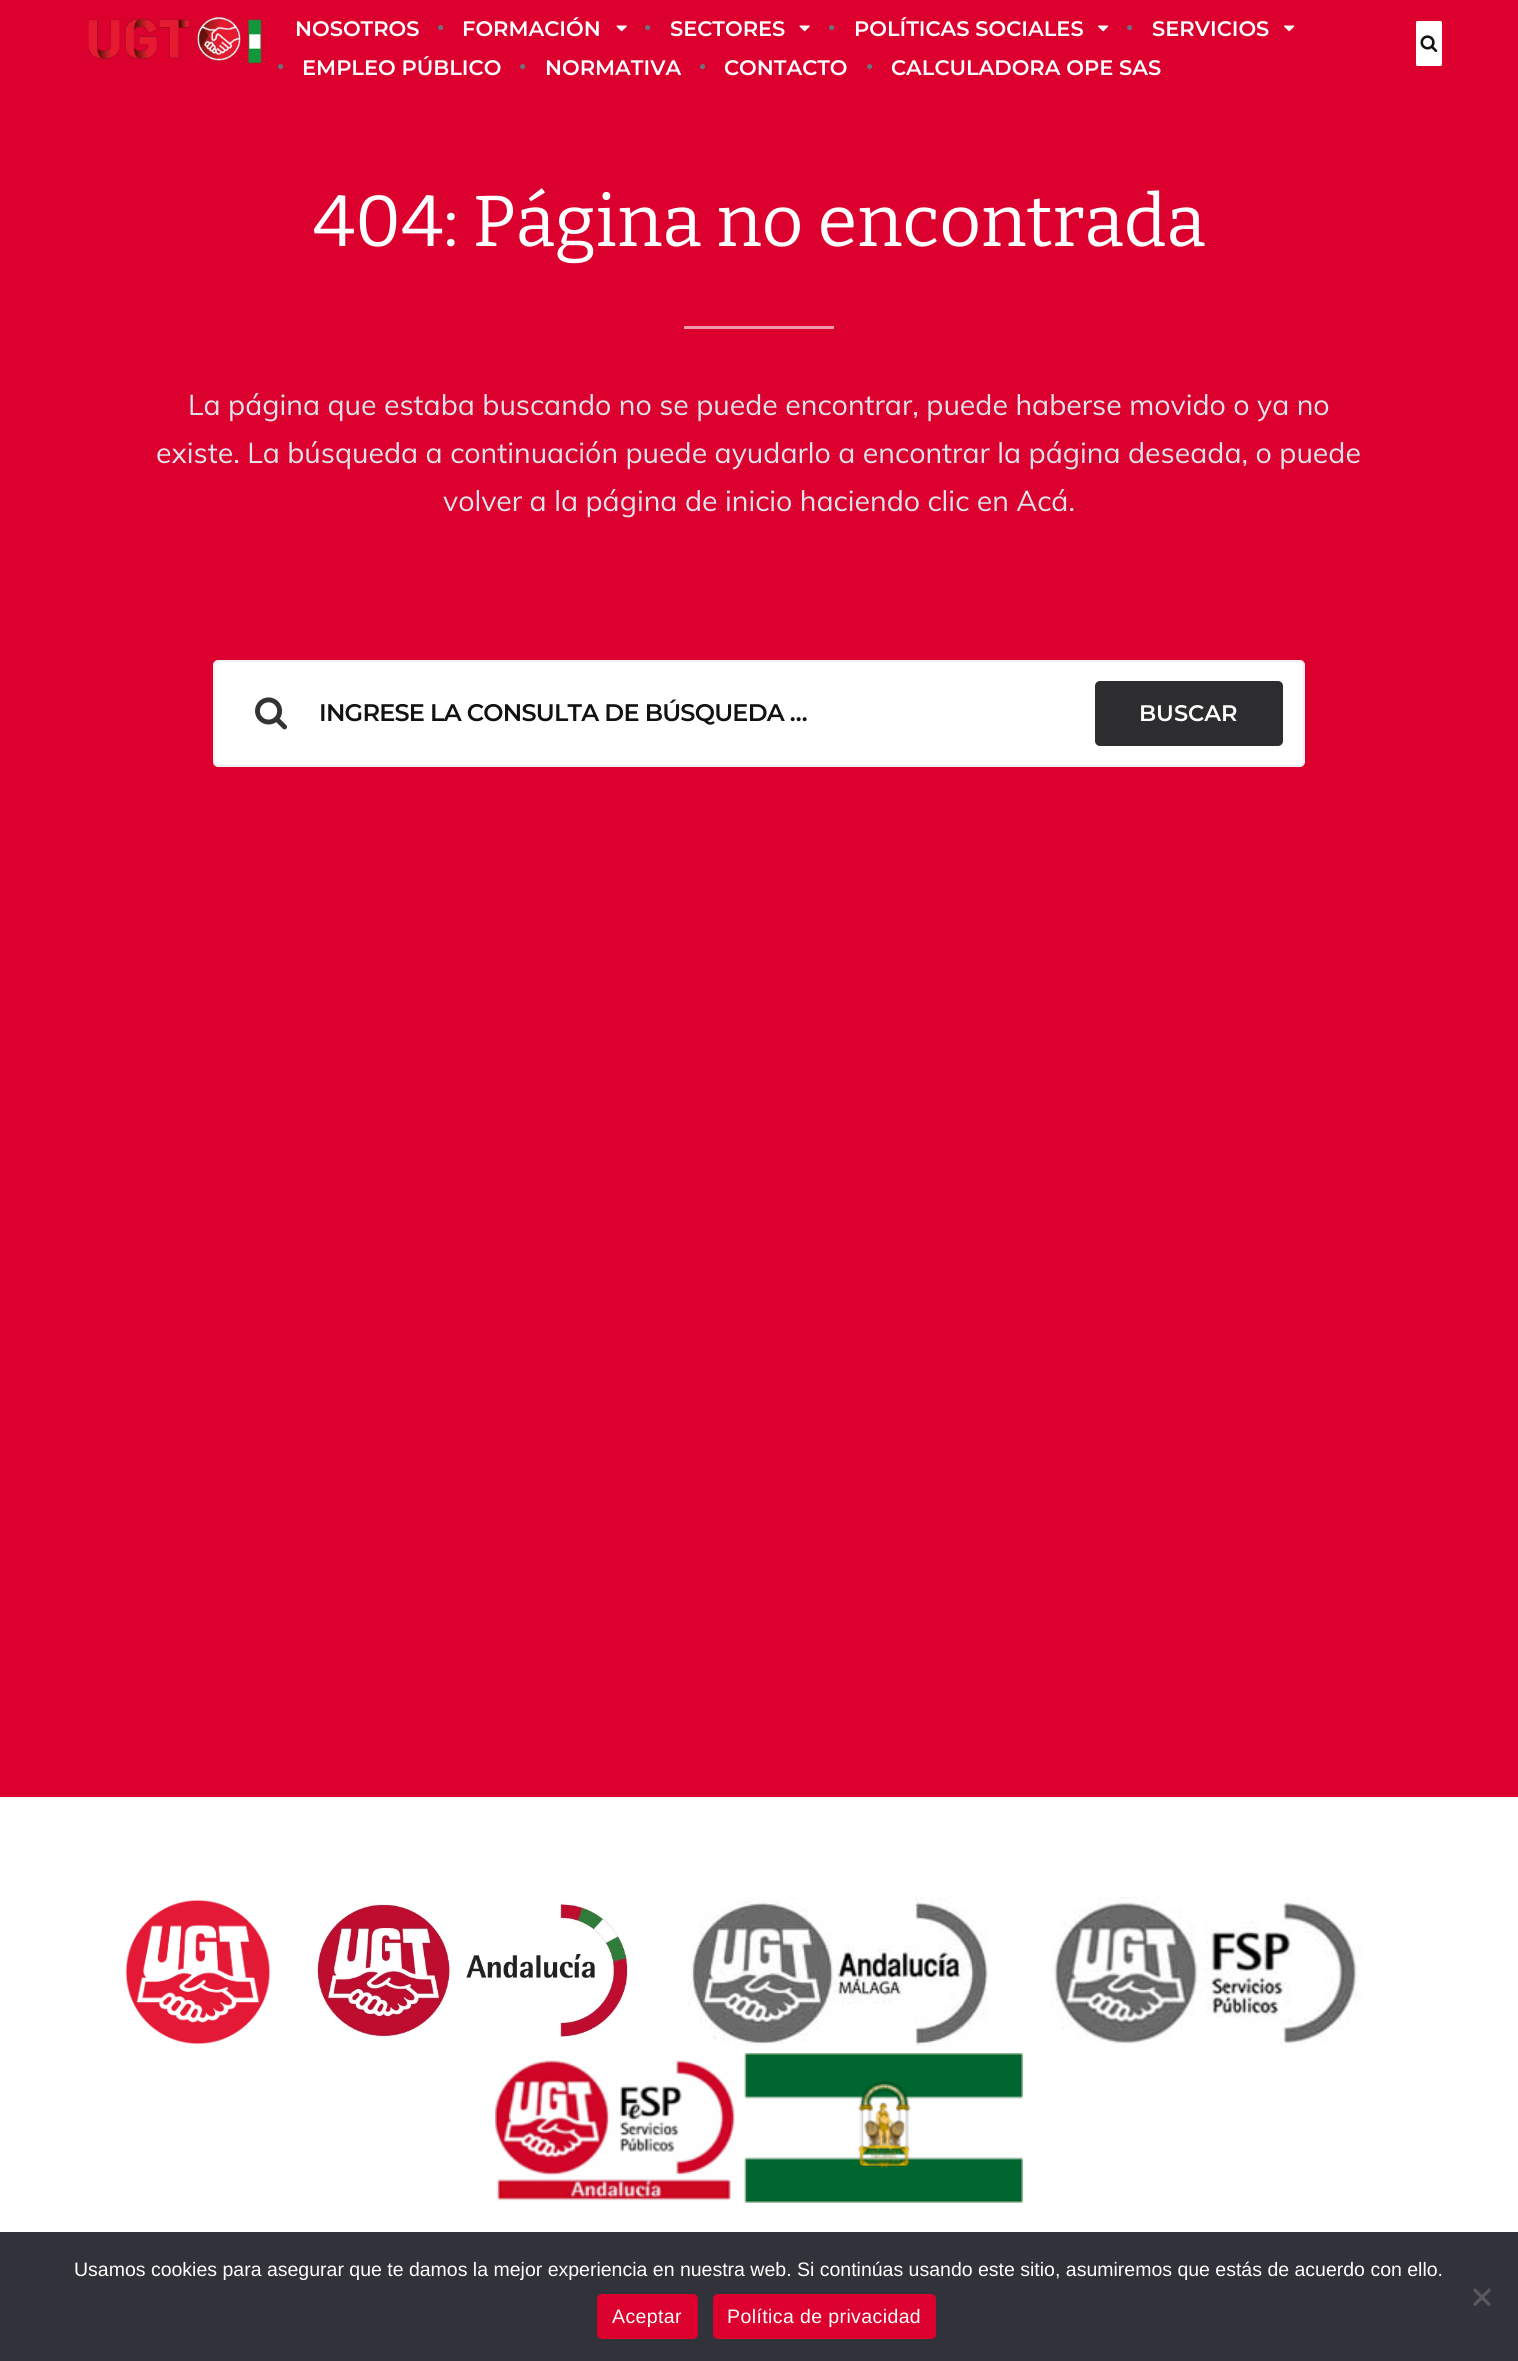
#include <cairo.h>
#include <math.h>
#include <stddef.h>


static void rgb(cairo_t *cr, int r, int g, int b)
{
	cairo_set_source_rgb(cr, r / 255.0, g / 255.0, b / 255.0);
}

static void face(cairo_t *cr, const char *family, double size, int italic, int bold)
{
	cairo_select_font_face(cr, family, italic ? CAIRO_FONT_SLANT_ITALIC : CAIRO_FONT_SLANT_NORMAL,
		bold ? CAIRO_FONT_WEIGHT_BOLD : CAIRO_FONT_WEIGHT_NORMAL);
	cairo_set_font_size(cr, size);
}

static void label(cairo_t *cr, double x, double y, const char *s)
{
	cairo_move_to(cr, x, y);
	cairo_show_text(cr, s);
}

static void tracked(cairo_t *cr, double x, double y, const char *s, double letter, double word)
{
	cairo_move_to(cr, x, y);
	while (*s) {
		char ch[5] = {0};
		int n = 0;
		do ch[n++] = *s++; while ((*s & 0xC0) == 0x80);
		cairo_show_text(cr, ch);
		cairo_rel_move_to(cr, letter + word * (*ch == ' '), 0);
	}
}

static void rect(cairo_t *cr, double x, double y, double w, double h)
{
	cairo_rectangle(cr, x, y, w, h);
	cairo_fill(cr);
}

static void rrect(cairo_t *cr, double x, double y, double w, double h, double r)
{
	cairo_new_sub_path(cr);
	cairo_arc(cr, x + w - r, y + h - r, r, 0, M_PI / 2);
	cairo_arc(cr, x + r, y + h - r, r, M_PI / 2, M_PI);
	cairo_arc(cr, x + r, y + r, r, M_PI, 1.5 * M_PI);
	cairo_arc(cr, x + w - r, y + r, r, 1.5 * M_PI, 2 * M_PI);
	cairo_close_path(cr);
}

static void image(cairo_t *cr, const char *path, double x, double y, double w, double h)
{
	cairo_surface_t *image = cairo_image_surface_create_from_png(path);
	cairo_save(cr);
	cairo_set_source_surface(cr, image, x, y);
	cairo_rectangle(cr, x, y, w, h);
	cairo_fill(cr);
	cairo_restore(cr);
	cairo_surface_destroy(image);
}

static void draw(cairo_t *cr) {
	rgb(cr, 255, 255, 255);
	cairo_paint(cr);
	rgb(cr, 220, 0, 46);
	rect(cr, 0, 0, 1518, 1797);
	image(cr, "image0.png", 88, 17, 174, 47);
	face(cr, "Montserrat Thin", 21, 0, 0);
	rgb(cr, 255, 255, 255);
	label(cr, 295, 36, "NOSOTROS");
	face(cr, "Liberation Sans", 12, 0, 0);
	rgb(cr, 109, 113, 126);
	label(cr, 437, 31, "●");
	face(cr, "Montserrat Thin", 21, 0, 0);
	rgb(cr, 255, 255, 255);
	label(cr, 462, 36, "FORMACIÓN");
	image(cr, "image1.png", 616, 25, 11, 7);
	face(cr, "Liberation Sans", 12, 0, 0);
	rgb(cr, 109, 113, 126);
	label(cr, 644, 31, "●");
	face(cr, "Montserrat Thin", 21, 0, 0);
	rgb(cr, 255, 255, 255);
	label(cr, 670, 36, "SECTORES");
	image(cr, "image1.png", 799, 25, 11, 7);
	face(cr, "Liberation Sans", 12, 0, 0);
	rgb(cr, 109, 113, 126);
	label(cr, 828, 31, "●");
	face(cr, "Montserrat Thin", 21, 0, 0);
	rgb(cr, 255, 255, 255);
	label(cr, 854, 36, "POLÍTICAS SOCIALES");
	image(cr, "image2.png", 1098, 25, 11, 7);
	face(cr, "Liberation Sans", 12, 0, 0);
	rgb(cr, 109, 113, 126);
	label(cr, 1126, 31, "●");
	face(cr, "Montserrat Thin", 21, 0, 0);
	rgb(cr, 255, 255, 255);
	label(cr, 1152, 36, "SERVICIOS");
	image(cr, "image2.png", 1284, 25, 11, 7);
	face(cr, "Liberation Sans", 12, 0, 0);
	rgb(cr, 109, 113, 126);
	label(cr, 277, 70, "●");
	face(cr, "Montserrat Thin", 21, 0, 0);
	rgb(cr, 255, 255, 255);
	label(cr, 302, 75, "EMPLEO PÚBLICO");
	face(cr, "Liberation Sans", 12, 0, 0);
	rgb(cr, 109, 113, 126);
	label(cr, 519, 70, "●");
	face(cr, "Montserrat Thin", 21, 0, 0);
	rgb(cr, 255, 255, 255);
	label(cr, 545, 75, "NORMATIVA");
	face(cr, "Liberation Sans", 12, 0, 0);
	rgb(cr, 109, 113, 126);
	label(cr, 699, 70, "●");
	face(cr, "Montserrat Thin", 21, 0, 0);
	rgb(cr, 255, 255, 255);
	label(cr, 724, 75, "CONTACTO");
	face(cr, "Liberation Sans", 12, 0, 0);
	rgb(cr, 109, 113, 126);
	label(cr, 866, 70, "●");
	face(cr, "Montserrat Thin", 21, 0, 0);
	rgb(cr, 255, 255, 255);
	label(cr, 891, 75, "CALCULADORA OPE SAS");
	rrect(cr, 1416, 21, 26, 45, 1.5);
	cairo_fill(cr);
	image(cr, "image3.png", 1420, 35, 18, 17);
	face(cr, "Bitter Thin", 72, 0, 0);
	label(cr, 313, 246, "404: Página no encontrada");
	rgb(cr, 241, 153, 171);
	rect(cr, 684, 326, 150, 3);
	face(cr, "Muli", 28.5, 0, 0);
	rgb(cr, 224, 227, 235);
	label(cr, 188, 415, "La página que estaba buscando no se puede encontrar, puede haberse movido o ya no");
	label(cr, 156, 463, "existe. La búsqueda a continuación puede ayudarlo a encontrar la página deseada, o puede");
	label(cr, 443, 511, "volver a la página de inicio haciendo clic en Acá.");
	rgb(cr, 255, 255, 255);
	rrect(cr, 214, 661, 1090, 105, 4);
	cairo_fill_preserve(cr);
	rgb(cr, 237, 241, 246);
	cairo_stroke(cr);
	image(cr, "image4.png", 255, 697, 32, 33);
	face(cr, "Montserrat Thin", 24, 0, 0);
	rgb(cr, 18, 18, 19);
	tracked(cr, 319, 721, "INGRESE LA CONSULTA DE BÚSQUEDA …", -0.75, 0);
	rgb(cr, 45, 45, 48);
	rrect(cr, 1095, 681, 188, 65, 5);
	cairo_fill(cr);
	face(cr, "Montserrat Thin", 22.5, 0, 0);
	rgb(cr, 255, 255, 255);
	label(cr, 1139, 721, "BUSCAR");
	image(cr, "image5.png", 125, 1899, 146, 146);
	image(cr, "image6.png", 316, 1901, 313, 137);
	image(cr, "image7.png", 688, 1897, 300, 150);
	image(cr, "image8.png", 1050, 1897, 312, 150);
	image(cr, "image9.png", 495, 2053, 528, 150);
	rgb(cr, 50, 50, 58);
	rect(cr, 0, 2232, 1518, 129);
	face(cr, "Liberation Sans", 19.5, 0, 0);
	rgb(cr, 255, 255, 255);
	label(cr, 74, 2276, "Usamos cookies para asegurar que te damos la mejor experiencia en nuestra web. Si continúas usando este sitio, asumiremos que estás de acuerdo con ello.");
	rgb(cr, 89, 89, 93);
	cairo_new_path(cr);
	cairo_move_to(cr, 1489, 2288);
	cairo_line_to(cr, 1491, 2290.5);
	cairo_line_to(cr, 1475, 2306.5);
	cairo_line_to(cr, 1473, 2304);
	cairo_close_path(cr);
	cairo_fill(cr);
	cairo_new_path(cr);
	cairo_move_to(cr, 1473, 2290.5);
	cairo_line_to(cr, 1475, 2288);
	cairo_line_to(cr, 1491, 2304);
	cairo_line_to(cr, 1489, 2306.5);
	cairo_close_path(cr);
	cairo_fill(cr);
	rgb(cr, 220, 0, 46);
	rrect(cr, 597, 2294, 101, 45, 5);
	cairo_fill(cr);
	rgb(cr, 255, 255, 255);
	tracked(cr, 612, 2323, "Aceptar", 0.4, 0);
	rgb(cr, 220, 0, 46);
	rrect(cr, 713, 2294, 223, 45, 5);
	cairo_fill(cr);
	rgb(cr, 255, 255, 255);
	tracked(cr, 727, 2323, "Política de privacidad", 0.4, 0);
}

int main(void) {
	cairo_surface_t *surface = cairo_image_surface_create(CAIRO_FORMAT_RGB24, 1518, 2361);
	cairo_t *cr = cairo_create(surface);
	cairo_font_options_t *options = cairo_font_options_create();
	cairo_font_options_set_hint_metrics(options, CAIRO_HINT_METRICS_OFF);
	cairo_font_options_set_hint_style(options, CAIRO_HINT_STYLE_NONE);
	cairo_set_font_options(cr, options);
	cairo_set_miter_limit(cr, 4);
	draw(cr);
	cairo_surface_write_to_png(surface, "render.png");
	cairo_font_options_destroy(options);
	cairo_destroy(cr);
	cairo_surface_destroy(surface);
	return 0;
}
